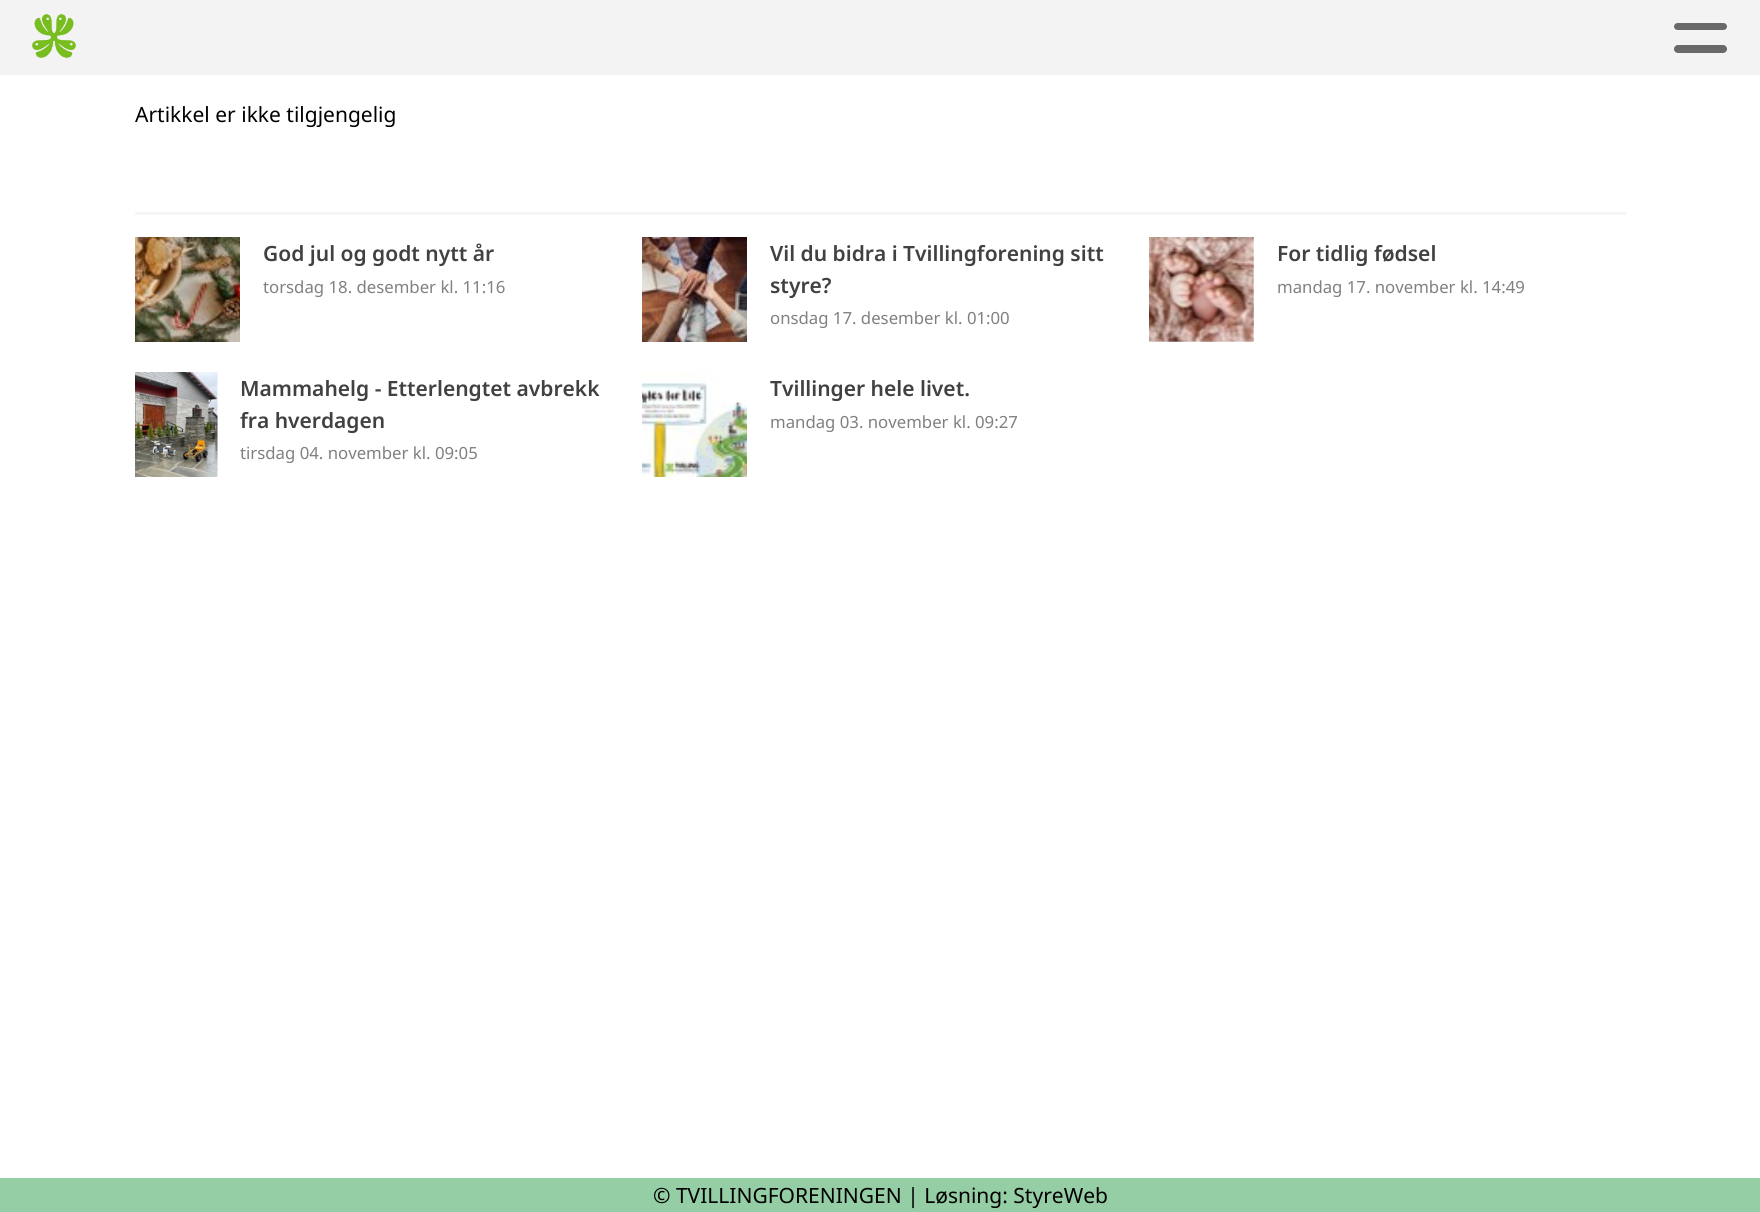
#include <cairo.h>
#include <math.h>
#include <stddef.h>


static void rgb(cairo_t *cr, int r, int g, int b)
{
	cairo_set_source_rgb(cr, r / 255.0, g / 255.0, b / 255.0);
}

static void face(cairo_t *cr, const char *family, double size, int italic, int bold)
{
	cairo_select_font_face(cr, family, italic ? CAIRO_FONT_SLANT_ITALIC : CAIRO_FONT_SLANT_NORMAL,
		bold ? CAIRO_FONT_WEIGHT_BOLD : CAIRO_FONT_WEIGHT_NORMAL);
	cairo_set_font_size(cr, size);
}

static void label(cairo_t *cr, double x, double y, const char *s)
{
	cairo_move_to(cr, x, y);
	cairo_show_text(cr, s);
}

static void rect(cairo_t *cr, double x, double y, double w, double h)
{
	cairo_rectangle(cr, x, y, w, h);
	cairo_fill(cr);
}

static void rrect(cairo_t *cr, double x, double y, double w, double h, double r)
{
	cairo_new_sub_path(cr);
	cairo_arc(cr, x + w - r, y + h - r, r, 0, M_PI / 2);
	cairo_arc(cr, x + r, y + h - r, r, M_PI / 2, M_PI);
	cairo_arc(cr, x + r, y + r, r, M_PI, 1.5 * M_PI);
	cairo_arc(cr, x + w - r, y + r, r, 1.5 * M_PI, 2 * M_PI);
	cairo_close_path(cr);
}

static void image(cairo_t *cr, const char *path, double x, double y, double w, double h)
{
	cairo_surface_t *image = cairo_image_surface_create_from_png(path);
	cairo_save(cr);
	cairo_set_source_surface(cr, image, x, y);
	cairo_rectangle(cr, x, y, w, h);
	cairo_fill(cr);
	cairo_restore(cr);
	cairo_surface_destroy(image);
}

static void draw(cairo_t *cr) {
	rgb(cr, 255, 255, 255);
	cairo_paint(cr);
	rgb(cr, 243, 243, 243);
	rect(cr, 0, 0, 1760, 75);
	image(cr, "image0.png", 32, 14, 44, 44);
	rgb(cr, 105, 105, 105);
	rrect(cr, 1674, 23, 53, 7, 3.5);
	cairo_fill(cr);
	rrect(cr, 1674, 45, 53, 8, 4);
	cairo_fill(cr);
	face(cr, "Noto Sans", 21, 0, 0);
	rgb(cr, 0, 0, 0);
	label(cr, 135, 122, "Artikkel er ikke tilgjengelig");
	rgb(cr, 245, 245, 245);
	rect(cr, 135, 212, 1491, 3);
	image(cr, "image1.png", 135, 237, 105, 105);
	face(cr, "Noto Sans SemiBold", 21, 0, 0);
	rgb(cr, 65, 65, 65);
	label(cr, 263, 261, "God jul og godt nytt år");
	face(cr, "Noto Sans", 16.75, 0, 0);
	rgb(cr, 128, 128, 128);
	label(cr, 263, 293, "torsdag 18. desember kl. 11:16");
	image(cr, "image2.png", 642, 237, 105, 105);
	face(cr, "Noto Sans SemiBold", 21, 0, 0);
	rgb(cr, 65, 65, 65);
	label(cr, 770, 261, "Vil du bidra i Tvillingforening sitt");
	label(cr, 770, 293, "styre?");
	face(cr, "Noto Sans", 16.75, 0, 0);
	rgb(cr, 128, 128, 128);
	label(cr, 770, 324, "onsdag 17. desember kl. 01:00");
	image(cr, "image3.png", 1149, 237, 105, 105);
	face(cr, "Noto Sans SemiBold", 21, 0, 0);
	rgb(cr, 65, 65, 65);
	label(cr, 1277, 261, "For tidlig fødsel");
	face(cr, "Noto Sans", 16.75, 0, 0);
	rgb(cr, 128, 128, 128);
	label(cr, 1277, 293, "mandag 17. november kl. 14:49");
	image(cr, "image4.png", 135, 372, 83, 105);
	face(cr, "Noto Sans SemiBold", 21, 0, 0);
	rgb(cr, 65, 65, 65);
	label(cr, 240, 396, "Mammahelg - Etterlengtet avbrekk");
	label(cr, 240, 428, "fra hverdagen");
	face(cr, "Noto Sans", 16.75, 0, 0);
	rgb(cr, 128, 128, 128);
	label(cr, 240, 459, "tirsdag 04. november kl. 09:05");
	image(cr, "image5.png", 642, 372, 105, 105);
	face(cr, "Noto Sans SemiBold", 21, 0, 0);
	rgb(cr, 65, 65, 65);
	label(cr, 770, 396, "Tvillinger hele livet.");
	face(cr, "Noto Sans", 16.75, 0, 0);
	rgb(cr, 128, 128, 128);
	label(cr, 770, 428, "mandag 03. november kl. 09:27");
	rgb(cr, 149, 206, 165);
	rect(cr, 0, 1178, 1760, 34);
	face(cr, "Noto Sans", 21, 0, 0);
	rgb(cr, 0, 0, 0);
	label(cr, 653, 1203, "© TVILLINGFORENINGEN | Løsning: StyreWeb");
}

int main(void) {
	cairo_surface_t *surface = cairo_image_surface_create(CAIRO_FORMAT_RGB24, 1760, 1212);
	cairo_t *cr = cairo_create(surface);
	cairo_font_options_t *options = cairo_font_options_create();
	cairo_font_options_set_hint_metrics(options, CAIRO_HINT_METRICS_OFF);
	cairo_font_options_set_hint_style(options, CAIRO_HINT_STYLE_NONE);
	cairo_set_font_options(cr, options);
	cairo_set_miter_limit(cr, 4);
	draw(cr);
	cairo_surface_write_to_png(surface, "render.png");
	cairo_font_options_destroy(options);
	cairo_destroy(cr);
	cairo_surface_destroy(surface);
	return 0;
}
